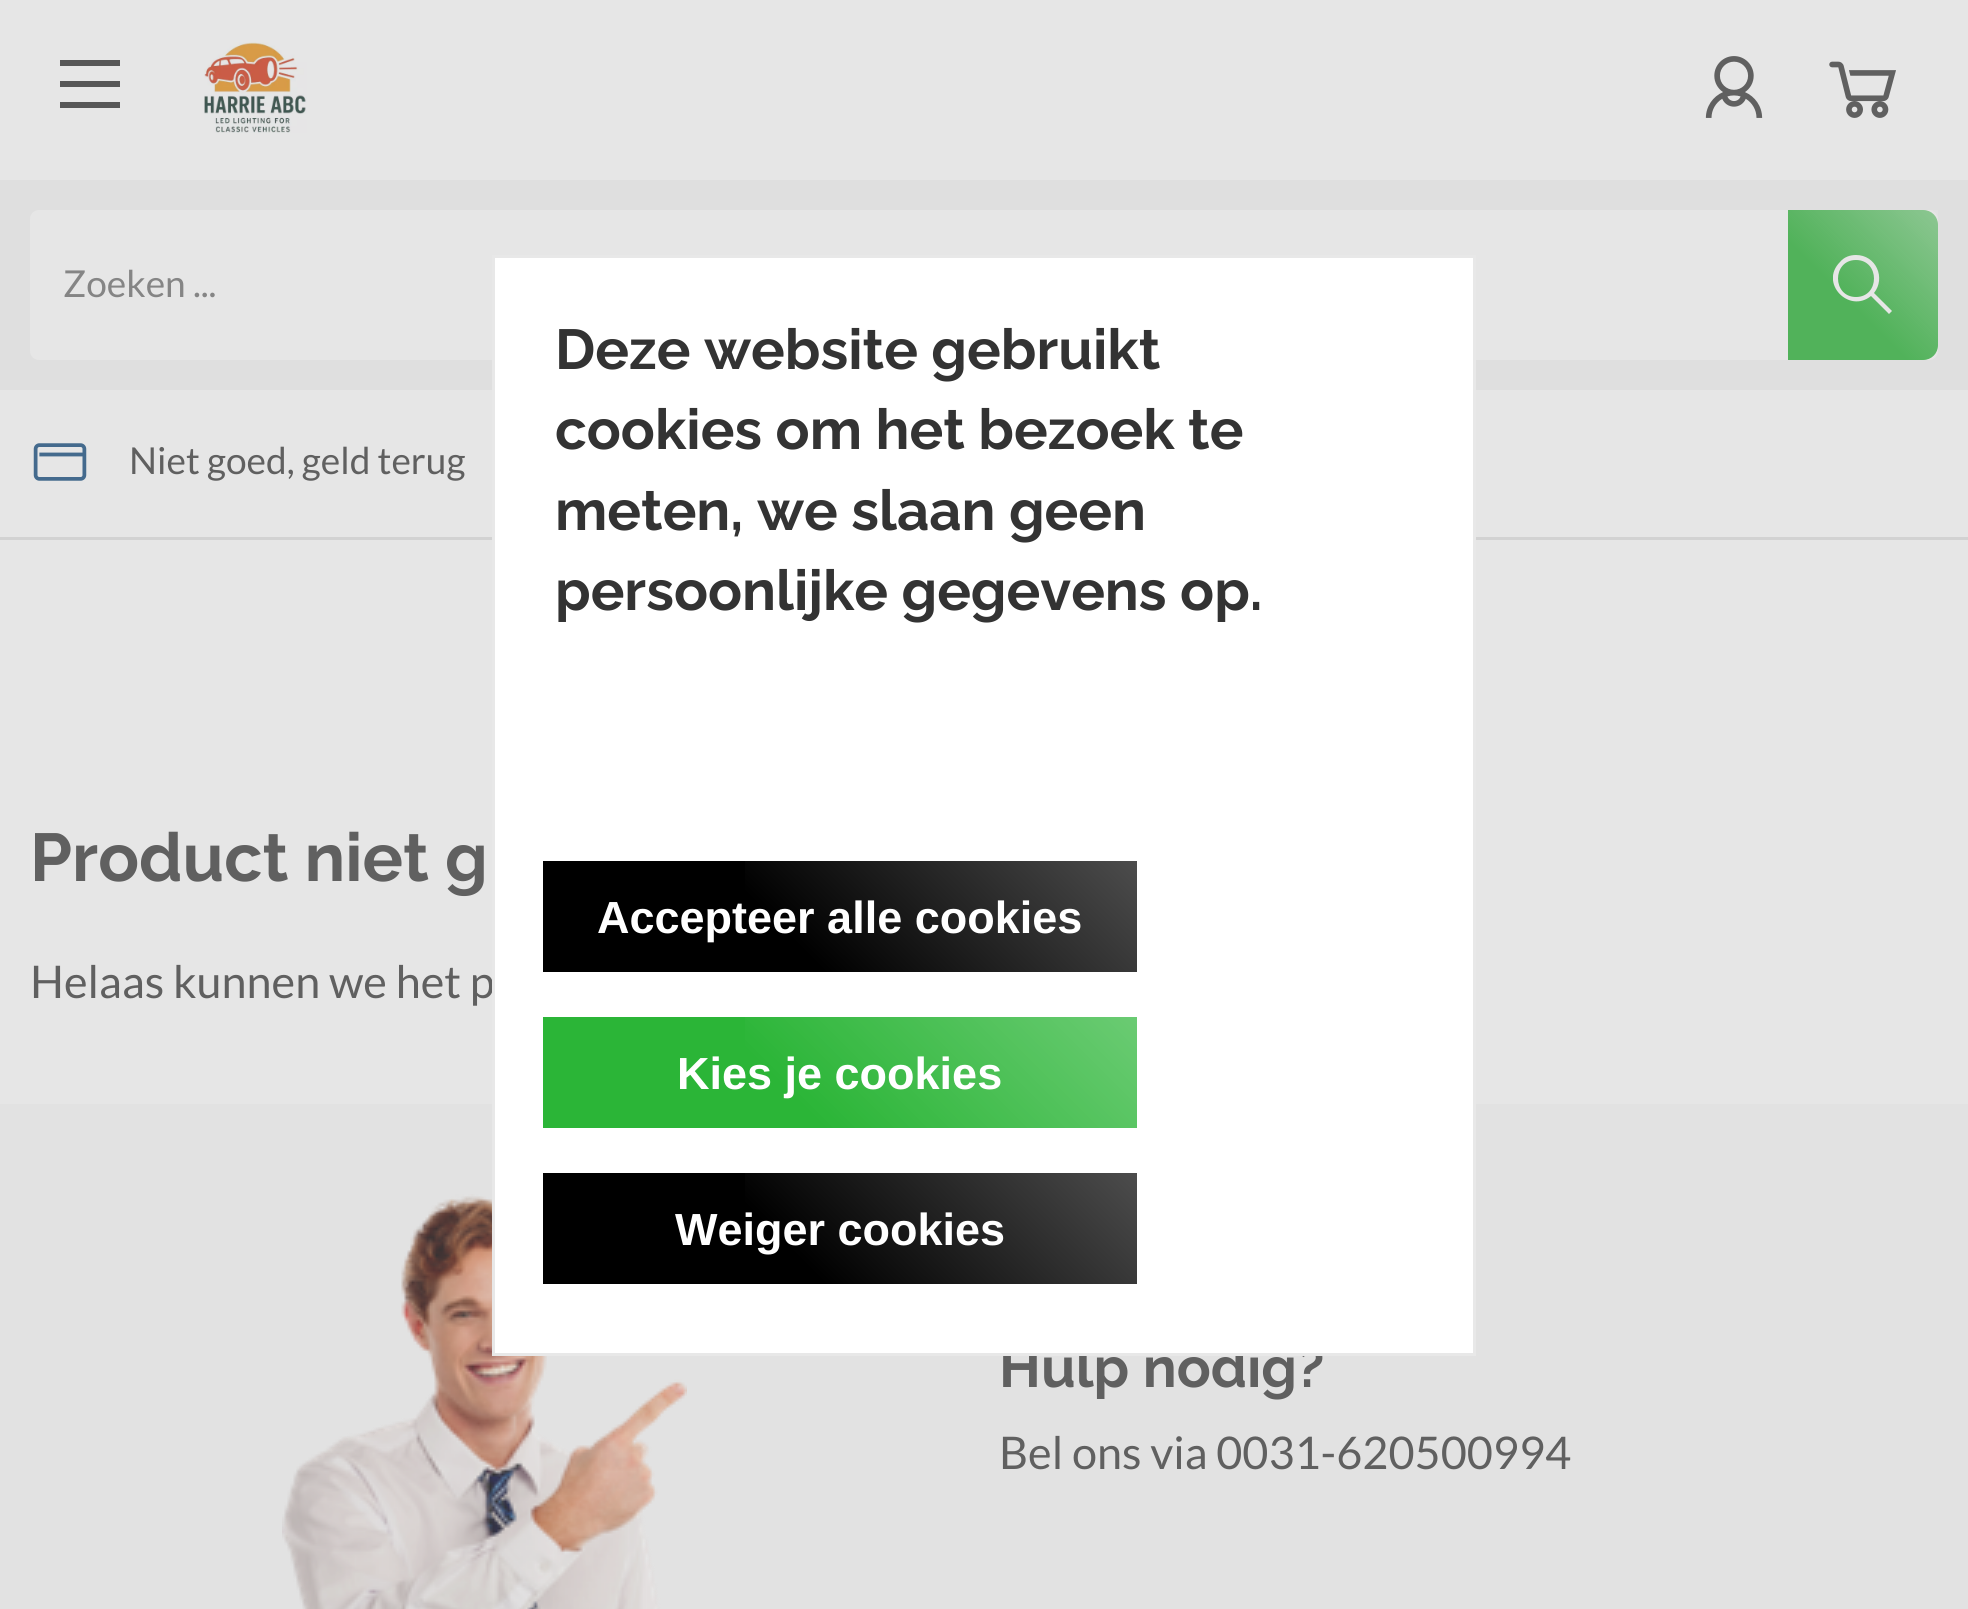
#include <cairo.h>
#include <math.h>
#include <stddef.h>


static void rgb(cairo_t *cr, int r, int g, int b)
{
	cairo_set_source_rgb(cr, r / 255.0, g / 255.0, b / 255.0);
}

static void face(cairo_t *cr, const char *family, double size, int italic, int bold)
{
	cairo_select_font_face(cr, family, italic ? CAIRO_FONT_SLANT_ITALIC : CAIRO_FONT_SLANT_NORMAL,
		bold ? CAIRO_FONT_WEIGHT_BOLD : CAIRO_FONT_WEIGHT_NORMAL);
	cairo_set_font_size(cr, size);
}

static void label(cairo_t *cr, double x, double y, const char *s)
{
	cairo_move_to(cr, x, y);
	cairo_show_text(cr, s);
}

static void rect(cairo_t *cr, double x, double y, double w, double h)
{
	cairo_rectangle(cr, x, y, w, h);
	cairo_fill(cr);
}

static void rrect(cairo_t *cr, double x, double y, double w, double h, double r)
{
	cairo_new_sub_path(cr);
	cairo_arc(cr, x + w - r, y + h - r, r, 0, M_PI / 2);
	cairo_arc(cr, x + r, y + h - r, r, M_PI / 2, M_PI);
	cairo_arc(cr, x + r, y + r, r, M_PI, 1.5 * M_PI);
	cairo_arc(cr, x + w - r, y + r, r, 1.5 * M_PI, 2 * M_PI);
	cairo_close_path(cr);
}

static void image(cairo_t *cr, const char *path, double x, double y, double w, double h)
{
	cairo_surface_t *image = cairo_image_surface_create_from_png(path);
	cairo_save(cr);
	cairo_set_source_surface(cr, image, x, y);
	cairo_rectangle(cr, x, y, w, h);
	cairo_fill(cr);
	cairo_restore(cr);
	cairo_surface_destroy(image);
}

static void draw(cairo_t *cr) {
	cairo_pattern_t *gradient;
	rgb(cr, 230, 230, 230);
	cairo_paint(cr);
	rgb(cr, 87, 87, 87);
	rect(cr, 60, 60, 60, 6);
	rect(cr, 60, 81, 60, 6);
	rect(cr, 60, 102, 60, 6);
	image(cr, "image0.png", 204, 42, 103, 91);
	image(cr, "image1.png", 1705, 56, 58, 62);
	image(cr, "image2.png", 1829, 61, 67, 57);
	rgb(cr, 223, 223, 223);
	rect(cr, 0, 180, 1968, 210);
	rgb(cr, 230, 230, 230);
	rrect(cr, 30, 210, 1908, 150, 9);
	cairo_fill(cr);
	face(cr, "Lato", 37.1, 0, 0);
	rgb(cr, 133, 133, 133);
	label(cr, 63, 297, "Zoeken ...");
	rgb(cr, 81, 178, 90);
	cairo_new_path(cr);
	cairo_move_to(cr, 1788, 210);
	cairo_line_to(cr, 1923, 210);
	cairo_curve_to(cr, 1931.5, 210, 1938, 216.5, 1938, 225);
	cairo_line_to(cr, 1938, 345);
	cairo_curve_to(cr, 1938, 353.5, 1931.5, 360, 1923, 360);
	cairo_line_to(cr, 1788, 360);
	cairo_close_path(cr);
	cairo_fill(cr);
	gradient = cairo_pattern_create_linear(1938, 210, 1788, 360);
	cairo_pattern_add_color_stop_rgba(gradient, 0, 0.902, 0.902, 0.902, 0.4);
	cairo_pattern_add_color_stop_rgba(gradient, 0.6, 0.902, 0.902, 0.902, 0);
	cairo_set_source(cr, gradient);
	cairo_pattern_destroy(gradient);
	rect(cr, 1788, 210, 150, 150);
	cairo_save(cr);
	cairo_rectangle(cr, 1833, 255, 60, 60);
	cairo_clip(cr);
	rgb(cr, 230, 230, 230);
	cairo_new_path(cr);
	cairo_move_to(cr, 1856, 255);
	cairo_curve_to(cr, 1876, 255, 1886, 278, 1874, 293);
	cairo_line_to(cr, 1892, 311);
	cairo_line_to(cr, 1889, 314);
	cairo_line_to(cr, 1871, 296);
	cairo_curve_to(cr, 1849, 314, 1819, 283, 1840, 262);
	cairo_curve_to(cr, 1844, 257, 1850, 255, 1856, 255);
	cairo_close_path(cr);
	cairo_move_to(cr, 1856, 260);
	cairo_curve_to(cr, 1832, 260, 1832, 297, 1856, 297);
	cairo_curve_to(cr, 1880, 297, 1880, 260, 1856, 260);
	cairo_close_path(cr);
	cairo_fill(cr);
	cairo_restore(cr);
	rgb(cr, 210, 210, 210);
	rect(cr, 0, 537, 1968, 3);
	image(cr, "image3.png", 33, 443, 54, 38);
	rgb(cr, 96, 96, 96);
	label(cr, 129, 474, "Niet goed, geld terug");
	face(cr, "Lato", 45, 0, 0);
	label(cr, 30, 998, "Helaas kunnen we het p");
	rgb(cr, 226, 226, 226);
	rect(cr, 0, 1104, 1968, 505);
	image(cr, "image4.png", 282, 1194, 405, 415);
	face(cr, "Raleway", 56.25, 0, 1);
	rgb(cr, 96, 96, 96);
	label(cr, 999, 1387, "Hulp nodig?");
	rgb(cr, 255, 255, 255);
	cairo_rectangle(cr, 493.5, 256.5, 981, 1098);
	cairo_fill_preserve(cr);
	rgb(cr, 232, 232, 232);
	cairo_set_line_width(cr, 3);
	cairo_stroke(cr);
	rgb(cr, 51, 51, 51);
	label(cr, 555, 369, "Deze website gebruikt");
	label(cr, 555, 449, "cookies om het bezoek te");
	label(cr, 555, 530, "meten, we slaan geen");
	label(cr, 555, 610, "persoonlijke gegevens op.");
	rgb(cr, 0, 0, 0);
	rect(cr, 543, 861, 594, 111);
	gradient = cairo_pattern_create_linear(1016, 740, 664, 1093);
	cairo_pattern_add_color_stop_rgba(gradient, 0, 1, 1, 1, 0.3);
	cairo_pattern_add_color_stop_rgba(gradient, 0.6, 1, 1, 1, 0);
	cairo_set_source(cr, gradient);
	cairo_pattern_destroy(gradient);
	rect(cr, 745, 861, 392, 111);
	face(cr, "Liberation Sans", 45, 0, 1);
	rgb(cr, 255, 255, 255);
	label(cr, 597, 933, "Accepteer alle cookies");
	rgb(cr, 43, 181, 55);
	rect(cr, 543, 1017, 594, 111);
	gradient = cairo_pattern_create_linear(1016, 896, 664, 1249);
	cairo_pattern_add_color_stop_rgba(gradient, 0, 1, 1, 1, 0.3);
	cairo_pattern_add_color_stop_rgba(gradient, 0.6, 1, 1, 1, 0);
	cairo_set_source(cr, gradient);
	cairo_pattern_destroy(gradient);
	rect(cr, 745, 1017, 392, 111);
	rgb(cr, 255, 255, 255);
	label(cr, 677, 1089, "Kies je cookies");
	rgb(cr, 0, 0, 0);
	rect(cr, 543, 1173, 594, 111);
	gradient = cairo_pattern_create_linear(1016, 1052, 664, 1405);
	cairo_pattern_add_color_stop_rgba(gradient, 0, 1, 1, 1, 0.3);
	cairo_pattern_add_color_stop_rgba(gradient, 0.6, 1, 1, 1, 0);
	cairo_set_source(cr, gradient);
	cairo_pattern_destroy(gradient);
	rect(cr, 745, 1173, 392, 111);
	rgb(cr, 255, 255, 255);
	label(cr, 675, 1245, "Weiger cookies");
	face(cr, "Raleway", 67.5, 0, 1);
	rgb(cr, 96, 96, 96);
	label(cr, 30, 881, "Product niet g");
	face(cr, "Lato", 45, 0, 0);
	label(cr, 999, 1469, "Bel ons via 0031-620500994");
}

int main(void) {
	cairo_surface_t *surface = cairo_image_surface_create(CAIRO_FORMAT_RGB24, 1968, 1609);
	cairo_t *cr = cairo_create(surface);
	cairo_font_options_t *options = cairo_font_options_create();
	cairo_font_options_set_hint_metrics(options, CAIRO_HINT_METRICS_OFF);
	cairo_font_options_set_hint_style(options, CAIRO_HINT_STYLE_NONE);
	cairo_set_font_options(cr, options);
	cairo_set_miter_limit(cr, 4);
	draw(cr);
	cairo_surface_write_to_png(surface, "render.png");
	cairo_font_options_destroy(options);
	cairo_destroy(cr);
	cairo_surface_destroy(surface);
	return 0;
}
